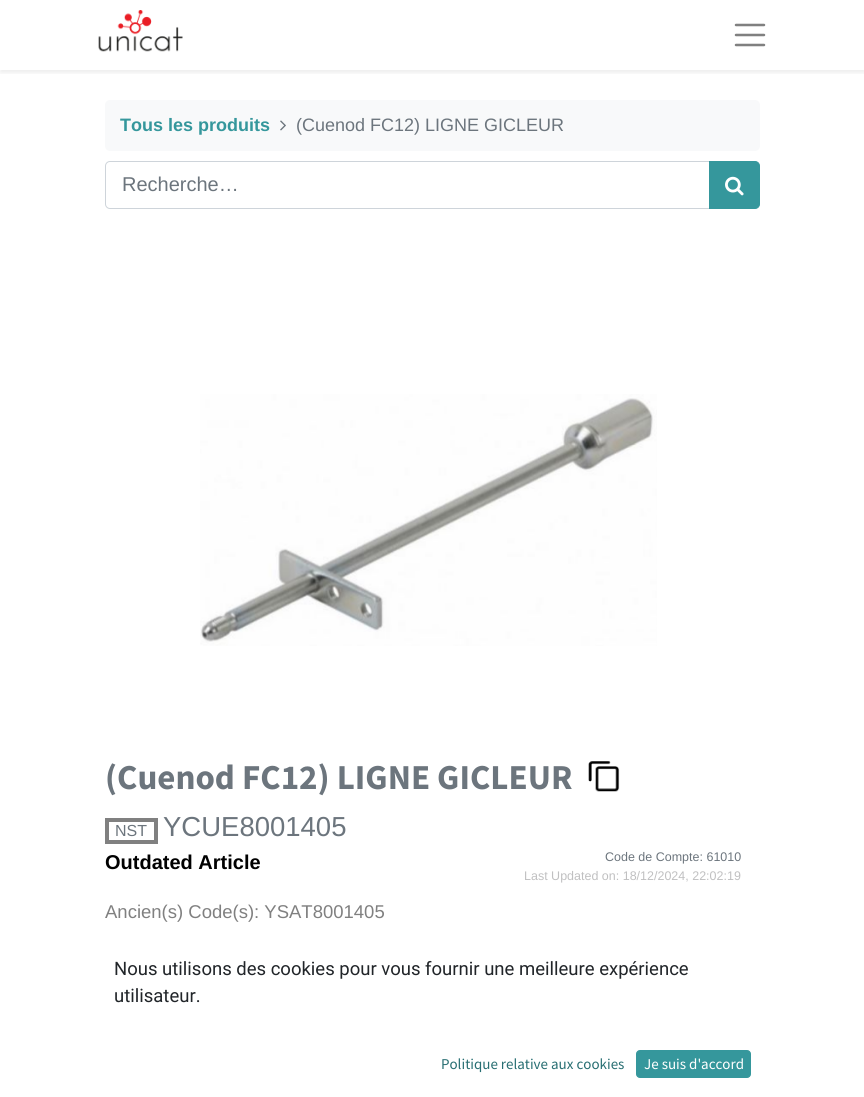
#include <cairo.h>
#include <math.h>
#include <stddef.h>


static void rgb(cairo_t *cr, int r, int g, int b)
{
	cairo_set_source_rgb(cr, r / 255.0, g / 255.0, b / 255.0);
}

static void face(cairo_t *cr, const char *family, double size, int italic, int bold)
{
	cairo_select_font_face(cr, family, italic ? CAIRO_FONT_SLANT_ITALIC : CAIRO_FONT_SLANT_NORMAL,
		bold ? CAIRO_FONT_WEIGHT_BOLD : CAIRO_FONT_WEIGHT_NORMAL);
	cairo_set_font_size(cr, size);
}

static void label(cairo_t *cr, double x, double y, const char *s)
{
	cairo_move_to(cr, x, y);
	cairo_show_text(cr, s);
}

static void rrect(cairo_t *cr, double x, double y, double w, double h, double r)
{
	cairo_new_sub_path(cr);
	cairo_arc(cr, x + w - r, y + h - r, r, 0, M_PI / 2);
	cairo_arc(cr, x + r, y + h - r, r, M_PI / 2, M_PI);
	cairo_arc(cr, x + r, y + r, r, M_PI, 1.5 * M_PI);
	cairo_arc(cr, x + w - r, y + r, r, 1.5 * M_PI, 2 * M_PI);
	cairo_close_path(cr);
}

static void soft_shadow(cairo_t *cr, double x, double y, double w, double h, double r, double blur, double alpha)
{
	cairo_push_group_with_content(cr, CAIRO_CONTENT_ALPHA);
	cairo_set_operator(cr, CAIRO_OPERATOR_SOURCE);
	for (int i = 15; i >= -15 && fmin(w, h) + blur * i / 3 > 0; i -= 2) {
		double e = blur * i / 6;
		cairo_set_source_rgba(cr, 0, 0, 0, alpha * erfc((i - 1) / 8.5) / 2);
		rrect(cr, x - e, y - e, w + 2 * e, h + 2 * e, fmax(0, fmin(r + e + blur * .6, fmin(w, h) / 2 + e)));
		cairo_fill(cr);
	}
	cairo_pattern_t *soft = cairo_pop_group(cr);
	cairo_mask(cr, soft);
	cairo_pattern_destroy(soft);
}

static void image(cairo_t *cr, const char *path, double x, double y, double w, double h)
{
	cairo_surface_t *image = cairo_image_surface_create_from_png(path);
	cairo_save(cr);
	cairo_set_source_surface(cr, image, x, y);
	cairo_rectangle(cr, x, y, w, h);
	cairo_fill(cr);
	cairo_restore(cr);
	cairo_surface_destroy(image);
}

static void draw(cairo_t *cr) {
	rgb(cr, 255, 255, 255);
	cairo_paint(cr);
	cairo_save(cr);
	cairo_rectangle(cr, 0, 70, 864, 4);
	cairo_clip(cr);
	rgb(cr, 0, 0, 0);
	soft_shadow(cr, 0, 3, 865, 70, 0, 2.5, 0.07);
	cairo_restore(cr);
	image(cr, "image0.png", 98, 10, 85, 42);
	cairo_new_path(cr);
	cairo_move_to(cr, 736, 25);
	cairo_line_to(cr, 764, 25);
	cairo_move_to(cr, 736, 35);
	cairo_line_to(cr, 764, 35);
	cairo_move_to(cr, 736, 45);
	cairo_line_to(cr, 764, 45);
	rgb(cr, 128, 128, 128);
	cairo_set_line_width(cr, 2.5);
	cairo_set_line_cap(cr, CAIRO_LINE_CAP_ROUND);
	cairo_stroke(cr);
	rgb(cr, 248, 249, 250);
	rrect(cr, 105, 100, 655, 51, 5);
	cairo_fill(cr);
	face(cr, "Liberation Sans", 18, 0, 1);
	rgb(cr, 53, 151, 156);
	label(cr, 120, 131, "Tous les produits");
	image(cr, "image1.png", 280, 120, 6, 11);
	face(cr, "Liberation Sans", 18, 0, 0);
	rgb(cr, 108, 117, 125);
	label(cr, 296, 131, "(Cuenod FC12) LIGNE GICLEUR");
	cairo_new_path(cr);
	cairo_move_to(cr, 110, 161.5);
	cairo_line_to(cr, 709.5, 161.5);
	cairo_line_to(cr, 709.5, 208.5);
	cairo_line_to(cr, 110, 208.5);
	cairo_curve_to(cr, 107.5, 208.5, 105.5, 206.5, 105.5, 204);
	cairo_line_to(cr, 105.5, 166);
	cairo_curve_to(cr, 105.5, 163.5, 107.5, 161.5, 110, 161.5);
	cairo_close_path(cr);
	rgb(cr, 206, 212, 218);
	cairo_set_line_width(cr, 1);
	cairo_set_line_cap(cr, CAIRO_LINE_CAP_BUTT);
	cairo_stroke(cr);
	face(cr, "Liberation Sans", 20, 0, 0);
	rgb(cr, 108, 117, 125);
	label(cr, 122, 191, "Recherche…");
	rgb(cr, 53, 151, 156);
	cairo_new_path(cr);
	cairo_move_to(cr, 709.5, 161.5);
	cairo_line_to(cr, 755, 161.5);
	cairo_curve_to(cr, 757.5, 161.5, 759.5, 163.5, 759.5, 166);
	cairo_line_to(cr, 759.5, 204);
	cairo_curve_to(cr, 759.5, 206.5, 757.5, 208.5, 755, 208.5);
	cairo_line_to(cr, 709.5, 208.5);
	cairo_close_path(cr);
	cairo_fill_preserve(cr);
	cairo_stroke(cr);
	image(cr, "image2.png", 725, 176, 19, 20);
	image(cr, "image3.png", 200, 394, 457, 252);
	face(cr, "Source Sans Pro", 35, 0, 1);
	rgb(cr, 108, 117, 125);
	label(cr, 105, 789, "(Cuenod FC12) LIGNE GICLEUR");
	image(cr, "image4.png", 588, 761, 32, 31);
	cairo_rectangle(cr, 107, 820, 49, 22);
	rgb(cr, 128, 128, 128);
	cairo_set_line_width(cr, 4);
	cairo_stroke(cr);
	face(cr, "Liberation Sans", 16, 0, 0);
	rgb(cr, 108, 117, 125);
	label(cr, 115, 836, "NST");
	face(cr, "Liberation Sans", 27.5, 0, 0);
	label(cr, 163, 836, "YCUE8001405");
	face(cr, "Liberation Sans", 20, 0, 1);
	rgb(cr, 0, 0, 0);
	label(cr, 105, 869, "Outdated Article");
	face(cr, "Liberation Sans", 12.5, 0, 0);
	rgb(cr, 108, 117, 125);
	label(cr, 605, 861, "Code de Compte: 61010");
	rgb(cr, 192, 192, 193);
	label(cr, 524, 880, "Last Updated on: 18/12/2024, 22:02:19");
	face(cr, "Liberation Sans", 18.5, 0, 0);
	rgb(cr, 128, 128, 128);
	label(cr, 105, 918, "Ancien(s) Code(s): YSAT8001405");
	face(cr, "Roboto", 18.5, 0, 0);
	rgb(cr, 33, 37, 41);
	label(cr, 114, 975, "Nous utilisons des cookies pour vous fournir une meilleure expérience");
	label(cr, 114, 1002, "utilisateur.");
	face(cr, "Source Sans Pro", 15, 0, 0);
	rgb(cr, 39, 110, 114);
	label(cr, 441, 1069, "Politique relative aux cookies");
	rgb(cr, 53, 151, 156);
	rrect(cr, 636.5, 1050.5, 114, 27, 3.5);
	cairo_fill_preserve(cr);
	cairo_set_line_width(cr, 1);
	cairo_stroke(cr);
	rgb(cr, 255, 255, 255);
	label(cr, 644, 1069, "Je suis d'accord");
}

int main(void) {
	cairo_surface_t *surface = cairo_image_surface_create(CAIRO_FORMAT_RGB24, 864, 1097);
	cairo_t *cr = cairo_create(surface);
	cairo_font_options_t *options = cairo_font_options_create();
	cairo_font_options_set_hint_metrics(options, CAIRO_HINT_METRICS_OFF);
	cairo_font_options_set_hint_style(options, CAIRO_HINT_STYLE_NONE);
	cairo_set_font_options(cr, options);
	cairo_set_miter_limit(cr, 4);
	draw(cr);
	cairo_surface_write_to_png(surface, "render.png");
	cairo_font_options_destroy(options);
	cairo_destroy(cr);
	cairo_surface_destroy(surface);
	return 0;
}
